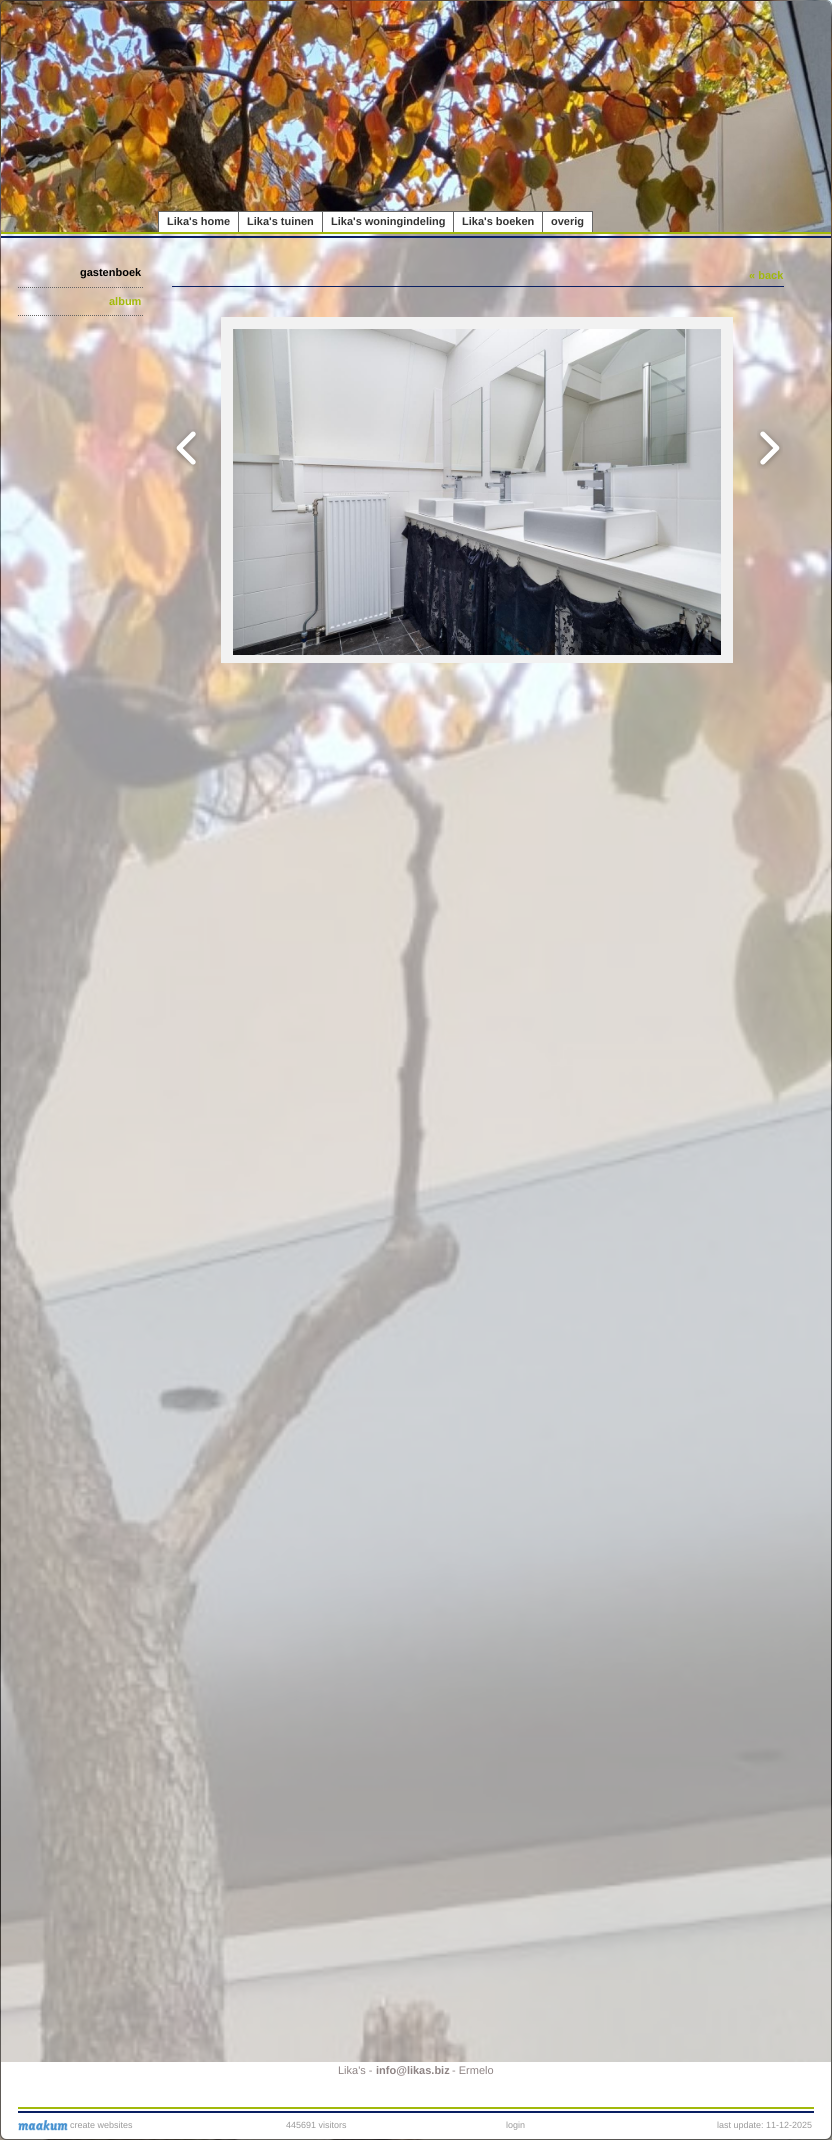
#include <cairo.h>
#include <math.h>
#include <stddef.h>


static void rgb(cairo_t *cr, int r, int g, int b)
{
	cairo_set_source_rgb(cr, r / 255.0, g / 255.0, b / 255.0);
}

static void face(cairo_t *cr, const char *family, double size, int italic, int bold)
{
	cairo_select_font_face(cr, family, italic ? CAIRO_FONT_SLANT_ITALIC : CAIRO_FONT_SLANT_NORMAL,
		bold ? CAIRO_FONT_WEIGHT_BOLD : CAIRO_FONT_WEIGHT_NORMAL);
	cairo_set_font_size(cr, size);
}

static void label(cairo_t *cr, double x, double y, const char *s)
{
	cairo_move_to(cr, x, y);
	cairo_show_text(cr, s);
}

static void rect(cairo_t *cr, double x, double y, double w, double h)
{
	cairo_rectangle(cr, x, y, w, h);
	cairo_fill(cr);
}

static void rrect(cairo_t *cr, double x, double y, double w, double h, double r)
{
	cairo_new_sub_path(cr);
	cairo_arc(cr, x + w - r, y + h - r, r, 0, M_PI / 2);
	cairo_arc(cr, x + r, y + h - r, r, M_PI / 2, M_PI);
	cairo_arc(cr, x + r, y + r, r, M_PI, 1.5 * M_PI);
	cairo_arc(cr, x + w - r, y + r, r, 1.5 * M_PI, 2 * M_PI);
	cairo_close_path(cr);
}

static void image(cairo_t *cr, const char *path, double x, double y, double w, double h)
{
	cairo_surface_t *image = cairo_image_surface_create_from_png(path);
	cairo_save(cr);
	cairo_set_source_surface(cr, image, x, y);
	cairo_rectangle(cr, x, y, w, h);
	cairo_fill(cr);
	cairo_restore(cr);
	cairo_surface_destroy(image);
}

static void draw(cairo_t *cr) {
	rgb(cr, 255, 255, 255);
	cairo_paint(cr);
	image(cr, "image0.png", 0, 0, 832, 2140);
	rrect(cr, 0.5, 0.5, 831, 2139, 5.5);
	rgb(cr, 51, 51, 51);
	cairo_set_line_width(cr, 1);
	cairo_stroke(cr);
	rgb(cr, 255, 255, 255);
	rect(cr, 1, 234, 830, 1828);
	image(cr, "image3.png", 0, 0, 832, 2140);
	image(cr, "image1.png", 1, 1, 830, 231);
	image(cr, "image2.png", 1, 232, 830, 6);
	rgb(cr, 102, 102, 102);
	rect(cr, 158, 211, 1, 21);
	rgb(cr, 255, 255, 255);
	rect(cr, 159, 212, 79, 20);
	rgb(cr, 102, 102, 102);
	rect(cr, 159, 211, 434, 1);
	rect(cr, 238, 211, 1, 21);
	face(cr, "Liberation Sans", 11, 0, 1);
	rgb(cr, 51, 51, 51);
	label(cr, 167, 225, "Lika's home");
	rgb(cr, 255, 255, 255);
	rect(cr, 239, 212, 83, 20);
	rgb(cr, 102, 102, 102);
	rect(cr, 322, 211, 1, 21);
	rgb(cr, 51, 51, 51);
	label(cr, 247, 225, "Lika's tuinen");
	rgb(cr, 255, 255, 255);
	rect(cr, 323, 212, 130, 20);
	rgb(cr, 102, 102, 102);
	rect(cr, 453, 211, 1, 21);
	rgb(cr, 51, 51, 51);
	label(cr, 331, 225, "Lika's woningindeling");
	rgb(cr, 255, 255, 255);
	rect(cr, 454, 212, 88, 20);
	rgb(cr, 102, 102, 102);
	rect(cr, 542, 211, 1, 21);
	rgb(cr, 51, 51, 51);
	label(cr, 462, 225, "Lika's boeken");
	rgb(cr, 255, 255, 255);
	rect(cr, 543, 212, 49, 20);
	rgb(cr, 102, 102, 102);
	rect(cr, 592, 211, 1, 21);
	rgb(cr, 51, 51, 51);
	label(cr, 551, 225, "overig");
	cairo_new_path(cr);
	cairo_move_to(cr, 18, 287.5);
	cairo_line_to(cr, 144, 287.5);
	rgb(cr, 102, 102, 102);
	cairo_set_dash(cr, (double[]){1, 1}, 2, 0);
	cairo_stroke(cr);
	rgb(cr, 0, 0, 0);
	label(cr, 80, 276, "gastenboek");
	cairo_new_path(cr);
	cairo_move_to(cr, 18, 315.5);
	cairo_line_to(cr, 144, 315.5);
	rgb(cr, 102, 102, 102);
	cairo_stroke(cr);
	rgb(cr, 161, 185, 10);
	label(cr, 109, 305, "album");
	rgb(cr, 9, 31, 98);
	rect(cr, 172, 286, 612, 1);
	rgb(cr, 161, 185, 10);
	label(cr, 749, 279, "« back");
	image(cr, "image4.png", 173, 429, 26, 40);
	rgb(cr, 242, 242, 242);
	rect(cr, 221, 317, 512, 346);
	image(cr, "image5.png", 233, 329, 488, 326);
	image(cr, "image6.png", 757, 429, 26, 40);
	rgb(cr, 255, 255, 255);
	cairo_new_path(cr);
	cairo_move_to(cr, 1, 2062);
	cairo_line_to(cr, 831, 2062);
	cairo_line_to(cr, 831, 2133);
	cairo_curve_to(cr, 831, 2136.5, 828.5, 2139, 825, 2139);
	cairo_line_to(cr, 7, 2139);
	cairo_curve_to(cr, 3.5, 2139, 1, 2136.5, 1, 2133);
	cairo_close_path(cr);
	cairo_fill(cr);
	face(cr, "Liberation Sans", 11, 0, 0);
	rgb(cr, 142, 132, 132);
	label(cr, 338, 2074, "Lika's -");
	face(cr, "Liberation Sans", 11, 0, 1);
	label(cr, 376, 2074, "info@likas.biz");
	face(cr, "Liberation Sans", 11, 0, 0);
	label(cr, 452, 2074, "- Ermelo");
	image(cr, "image7.png", 18, 2107, 796, 6);
	image(cr, "image8.png", 18, 2120, 50, 11);
	face(cr, "Liberation Sans", 9, 0, 0);
	rgb(cr, 153, 153, 153);
	label(cr, 70, 2128, "create websites");
	label(cr, 286, 2128, "445691 visitors");
	label(cr, 506, 2128, "login");
	label(cr, 717, 2128, "last update: 11-12-2025");
}

int main(void) {
	cairo_surface_t *surface = cairo_image_surface_create(CAIRO_FORMAT_RGB24, 832, 2140);
	cairo_t *cr = cairo_create(surface);
	cairo_font_options_t *options = cairo_font_options_create();
	cairo_font_options_set_hint_metrics(options, CAIRO_HINT_METRICS_OFF);
	cairo_font_options_set_hint_style(options, CAIRO_HINT_STYLE_NONE);
	cairo_set_font_options(cr, options);
	cairo_set_miter_limit(cr, 4);
	draw(cr);
	cairo_surface_write_to_png(surface, "render.png");
	cairo_font_options_destroy(options);
	cairo_destroy(cr);
	cairo_surface_destroy(surface);
	return 0;
}
